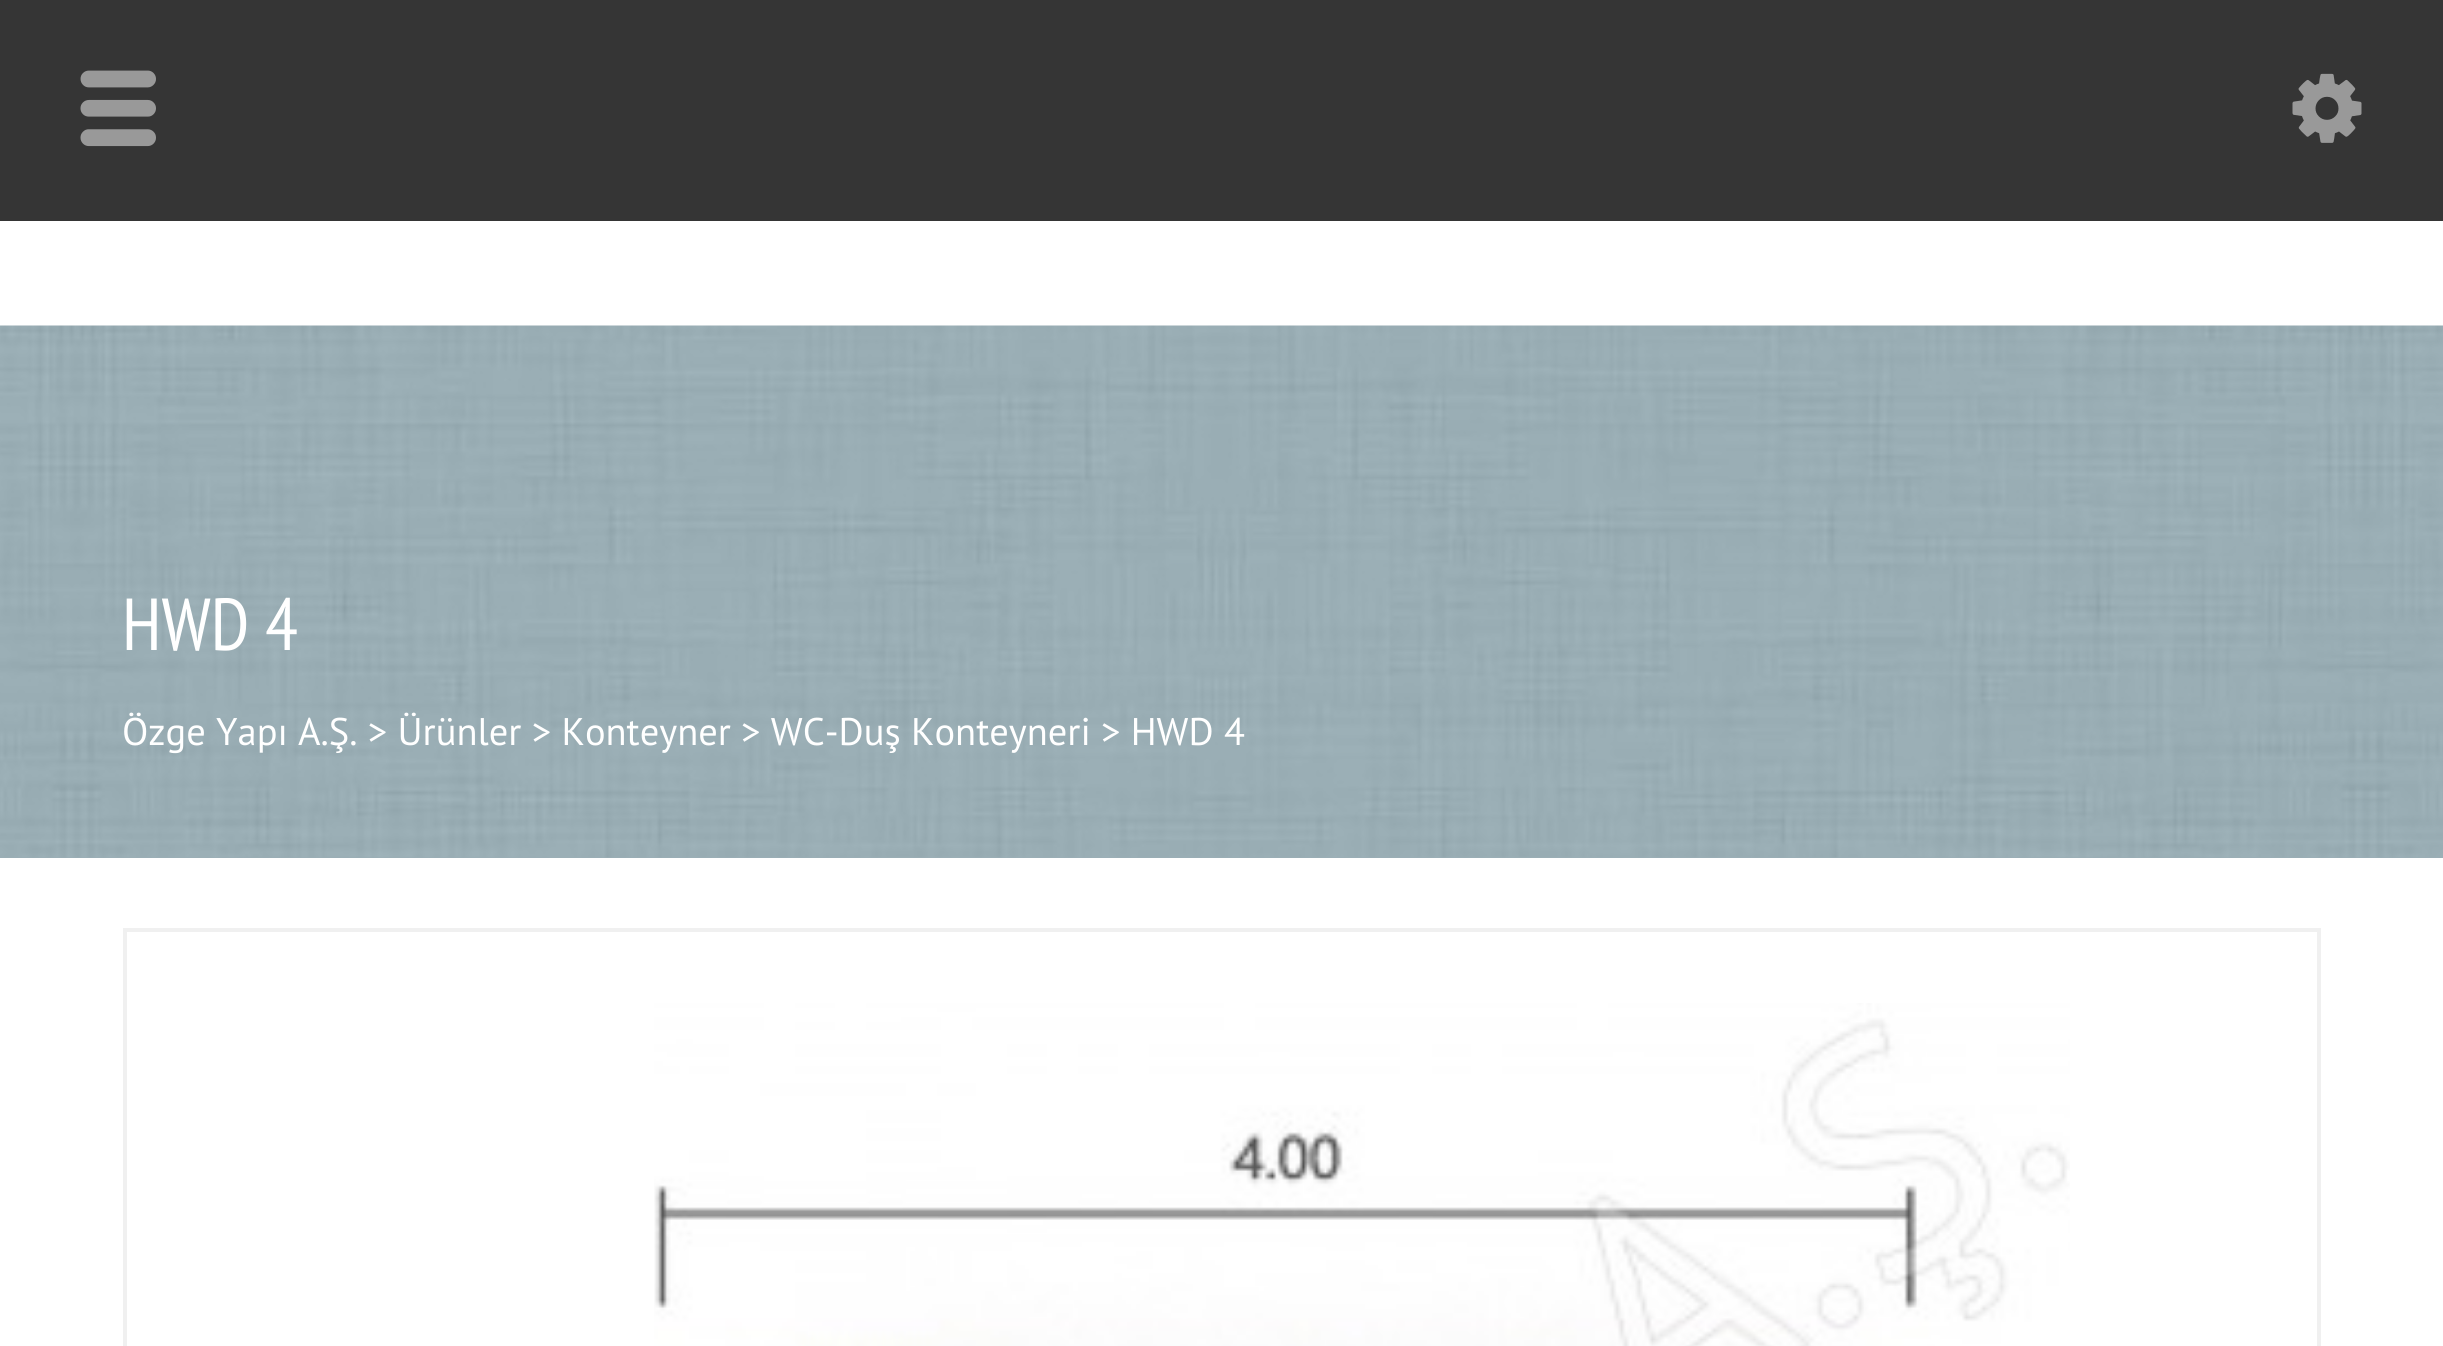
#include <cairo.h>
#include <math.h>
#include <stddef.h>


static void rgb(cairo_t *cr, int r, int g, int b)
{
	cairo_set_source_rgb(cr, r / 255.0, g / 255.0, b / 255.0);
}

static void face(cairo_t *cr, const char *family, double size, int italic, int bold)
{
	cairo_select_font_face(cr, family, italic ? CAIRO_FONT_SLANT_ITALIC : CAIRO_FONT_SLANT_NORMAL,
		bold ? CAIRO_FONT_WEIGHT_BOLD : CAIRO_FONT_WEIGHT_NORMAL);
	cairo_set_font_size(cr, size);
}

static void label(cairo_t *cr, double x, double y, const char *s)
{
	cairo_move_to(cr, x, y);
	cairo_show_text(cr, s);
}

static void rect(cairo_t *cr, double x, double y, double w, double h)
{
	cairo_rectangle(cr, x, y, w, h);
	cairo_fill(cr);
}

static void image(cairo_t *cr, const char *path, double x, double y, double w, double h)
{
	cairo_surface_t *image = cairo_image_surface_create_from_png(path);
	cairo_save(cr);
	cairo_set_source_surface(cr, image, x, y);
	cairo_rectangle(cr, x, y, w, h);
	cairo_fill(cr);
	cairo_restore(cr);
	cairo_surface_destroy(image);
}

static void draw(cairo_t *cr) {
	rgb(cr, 255, 255, 255);
	cairo_paint(cr);
	rgb(cr, 53, 53, 53);
	rect(cr, 0, 0, 2443, 221);
	image(cr, "image0.png", 80, 70, 76, 77);
	image(cr, "image1.png", 2292, 73, 70, 70);
	rgb(cr, 155, 175, 182);
	rect(cr, 0, 857, 2443, 1);
	image(cr, "image2.png", 0, 325, 2443, 533);
	face(cr, "PT Sans Narrow", 73.5, 0, 0);
	rgb(cr, 255, 255, 255);
	label(cr, 122, 650, "HWD 4");
	face(cr, "PT Sans", 38.5, 0, 0);
	label(cr, 122, 745, "Özge Yapı A.Ş. > Ürünler > Konteyner > WC-Duş Konteyneri > HWD 4");
	cairo_rectangle(cr, 125, 930, 2194, 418);
	rgb(cr, 240, 240, 240);
	cairo_set_line_width(cr, 4);
	cairo_stroke(cr);
	image(cr, "image3.png", 654, 1003, 1416, 343);
}

int main(void) {
	cairo_surface_t *surface = cairo_image_surface_create(CAIRO_FORMAT_RGB24, 2443, 1346);
	cairo_t *cr = cairo_create(surface);
	cairo_font_options_t *options = cairo_font_options_create();
	cairo_font_options_set_hint_metrics(options, CAIRO_HINT_METRICS_OFF);
	cairo_font_options_set_hint_style(options, CAIRO_HINT_STYLE_NONE);
	cairo_set_font_options(cr, options);
	cairo_set_miter_limit(cr, 4);
	draw(cr);
	cairo_surface_write_to_png(surface, "render.png");
	cairo_font_options_destroy(options);
	cairo_destroy(cr);
	cairo_surface_destroy(surface);
	return 0;
}
